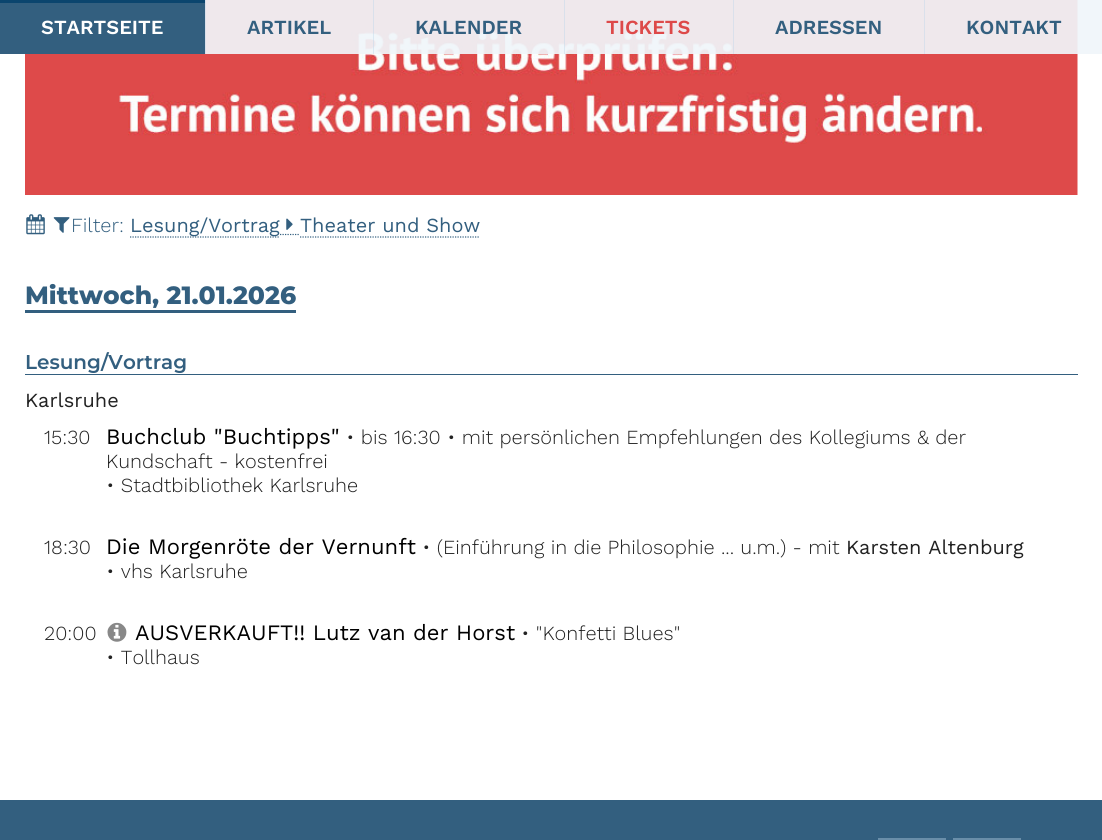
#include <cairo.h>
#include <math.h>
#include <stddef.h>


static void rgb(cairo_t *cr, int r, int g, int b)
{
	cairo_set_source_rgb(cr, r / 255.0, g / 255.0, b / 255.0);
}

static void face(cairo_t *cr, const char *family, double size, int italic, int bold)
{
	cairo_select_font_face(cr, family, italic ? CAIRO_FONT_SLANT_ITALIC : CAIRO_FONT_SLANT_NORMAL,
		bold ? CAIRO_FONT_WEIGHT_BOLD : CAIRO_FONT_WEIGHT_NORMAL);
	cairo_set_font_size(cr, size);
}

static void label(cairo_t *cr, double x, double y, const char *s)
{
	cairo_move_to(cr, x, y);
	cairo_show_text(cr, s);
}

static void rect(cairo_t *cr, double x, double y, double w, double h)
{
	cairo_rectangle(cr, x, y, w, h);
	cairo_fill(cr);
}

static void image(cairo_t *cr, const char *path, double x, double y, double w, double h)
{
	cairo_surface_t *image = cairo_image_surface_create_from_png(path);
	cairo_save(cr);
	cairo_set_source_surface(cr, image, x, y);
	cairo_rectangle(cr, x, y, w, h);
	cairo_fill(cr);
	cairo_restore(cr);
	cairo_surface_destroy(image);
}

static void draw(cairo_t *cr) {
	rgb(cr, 255, 255, 255);
	cairo_paint(cr);
	image(cr, "image0.png", 25, 0, 1053, 195);
	cairo_set_source_rgba(cr, 1, 1, 1, 0.9);
	rect(cr, 206, 0, 872, 54);
	cairo_set_source_rgba(cr, 0.729, 0.835, 0.914, 0.2);
	rect(cr, 206, 0, 896, 54);
	rgb(cr, 218, 224, 235);
	rect(cr, 205, 0, 1, 54);
	rgb(cr, 51, 95, 127);
	rect(cr, 0, 3, 205, 51);
	rgb(cr, 11, 69, 110);
	rect(cr, 0, 0, 205, 3);
	face(cr, "Work Sans SemiBold", 20, 0, 0);
	rgb(cr, 255, 255, 255);
	label(cr, 41, 34, "STARTSEITE");
	cairo_set_source_rgba(cr, 0.729, 0.835, 0.914, 0.4);
	rect(cr, 373, 0, 1, 54);
	rgb(cr, 51, 95, 127);
	label(cr, 247, 34, "ARTIKEL");
	cairo_set_source_rgba(cr, 0.729, 0.835, 0.914, 0.4);
	rect(cr, 564, 0, 1, 54);
	rgb(cr, 51, 95, 127);
	label(cr, 415, 34, "KALENDER");
	rgb(cr, 218, 224, 235);
	rect(cr, 733, 0, 1, 54);
	rgb(cr, 221, 73, 73);
	label(cr, 606, 34, "TICKETS");
	rgb(cr, 218, 224, 235);
	rect(cr, 924, 0, 1, 54);
	rgb(cr, 51, 95, 127);
	label(cr, 775, 34, "ADRESSEN");
	label(cr, 966, 34, "KONTAKT");
	image(cr, "image1.png", 26, 214, 19, 21);
	image(cr, "image2.png", 53, 217, 17, 16);
	face(cr, "Work Sans Light", 20, 0, 0);
	label(cr, 71, 232, "Filter:");
	cairo_new_path(cr);
	cairo_move_to(cr, 130, 237);
	cairo_line_to(cr, 280, 237);
	cairo_set_line_width(cr, 1.2);
	cairo_set_dash(cr, (double[]){1.25, 1.25}, 2, 0);
	cairo_stroke(cr);
	cairo_new_path(cr);
	cairo_move_to(cr, 280, 234.5);
	cairo_line_to(cr, 300, 234.5);
	cairo_stroke(cr);
	cairo_new_path(cr);
	cairo_move_to(cr, 300, 237);
	cairo_line_to(cr, 480, 237);
	cairo_stroke(cr);
	face(cr, "Work Sans", 20, 0, 0);
	label(cr, 130, 232, "Lesung/Vortrag");
	image(cr, "image3.png", 286, 218, 7, 12);
	label(cr, 300, 232, "Theater und Show");
	rect(cr, 25, 310, 271, 3);
	face(cr, "Montserrat Thin", 25, 0, 0);
	label(cr, 25, 304, "Mittwoch, 21.01.2026");
	rect(cr, 25, 374, 1053, 1);
	face(cr, "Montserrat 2 Thin", 20, 0, 0);
	label(cr, 25, 369, "Lesung/Vortrag");
	face(cr, "Work Sans", 20, 0, 0);
	rgb(cr, 34, 34, 34);
	label(cr, 25, 407, "Karlsruhe");
	face(cr, "Work Sans Light", 20, 0, 0);
	label(cr, 44, 444, "15:30");
	face(cr, "Work Sans", 22, 0, 0);
	rgb(cr, 0, 0, 0);
	label(cr, 106, 444, "Buchclub \"Buchtipps\"");
	face(cr, "Work Sans Light", 20, 0, 0);
	rgb(cr, 34, 34, 34);
	label(cr, 346, 444, "• bis 16:30 • mit persönlichen Empfehlungen des Kollegiums & der");
	label(cr, 106, 468, "Kundschaft - kostenfrei");
	label(cr, 106, 492, "• Stadtbibliothek Karlsruhe");
	label(cr, 44, 554, "18:30");
	face(cr, "Work Sans", 22, 0, 0);
	rgb(cr, 0, 0, 0);
	label(cr, 106, 554, "Die Morgenröte der Vernunft");
	face(cr, "Work Sans Light", 20, 0, 0);
	rgb(cr, 34, 34, 34);
	label(cr, 422, 554, "• (Einführung in die Philosophie ... u.m.) - mit");
	face(cr, "Work Sans", 20, 0, 0);
	label(cr, 846, 554, "Karsten Altenburg");
	face(cr, "Work Sans Light", 20, 0, 0);
	label(cr, 106, 578, "• vhs Karlsruhe");
	label(cr, 44, 640, "20:00");
	image(cr, "image4.png", 107, 622, 20, 20);
	face(cr, "Work Sans", 22, 0, 0);
	rgb(cr, 0, 0, 0);
	label(cr, 135, 640, "AUSVERKAUFT!! Lutz van der Horst");
	face(cr, "Work Sans Light", 20, 0, 0);
	rgb(cr, 34, 34, 34);
	label(cr, 521, 640, "• \"Konfetti Blues\"");
	label(cr, 106, 664, "• Tollhaus");
	rgb(cr, 51, 95, 127);
	rect(cr, 0, 800, 1102, 40);
	rgb(cr, 105, 142, 169);
	rect(cr, 878, 838, 68, 2);
	rect(cr, 953, 838, 68, 2);
}

int main(void) {
	cairo_surface_t *surface = cairo_image_surface_create(CAIRO_FORMAT_RGB24, 1102, 840);
	cairo_t *cr = cairo_create(surface);
	cairo_font_options_t *options = cairo_font_options_create();
	cairo_font_options_set_hint_metrics(options, CAIRO_HINT_METRICS_OFF);
	cairo_font_options_set_hint_style(options, CAIRO_HINT_STYLE_NONE);
	cairo_set_font_options(cr, options);
	cairo_set_miter_limit(cr, 4);
	draw(cr);
	cairo_surface_write_to_png(surface, "render.png");
	cairo_font_options_destroy(options);
	cairo_destroy(cr);
	cairo_surface_destroy(surface);
	return 0;
}
